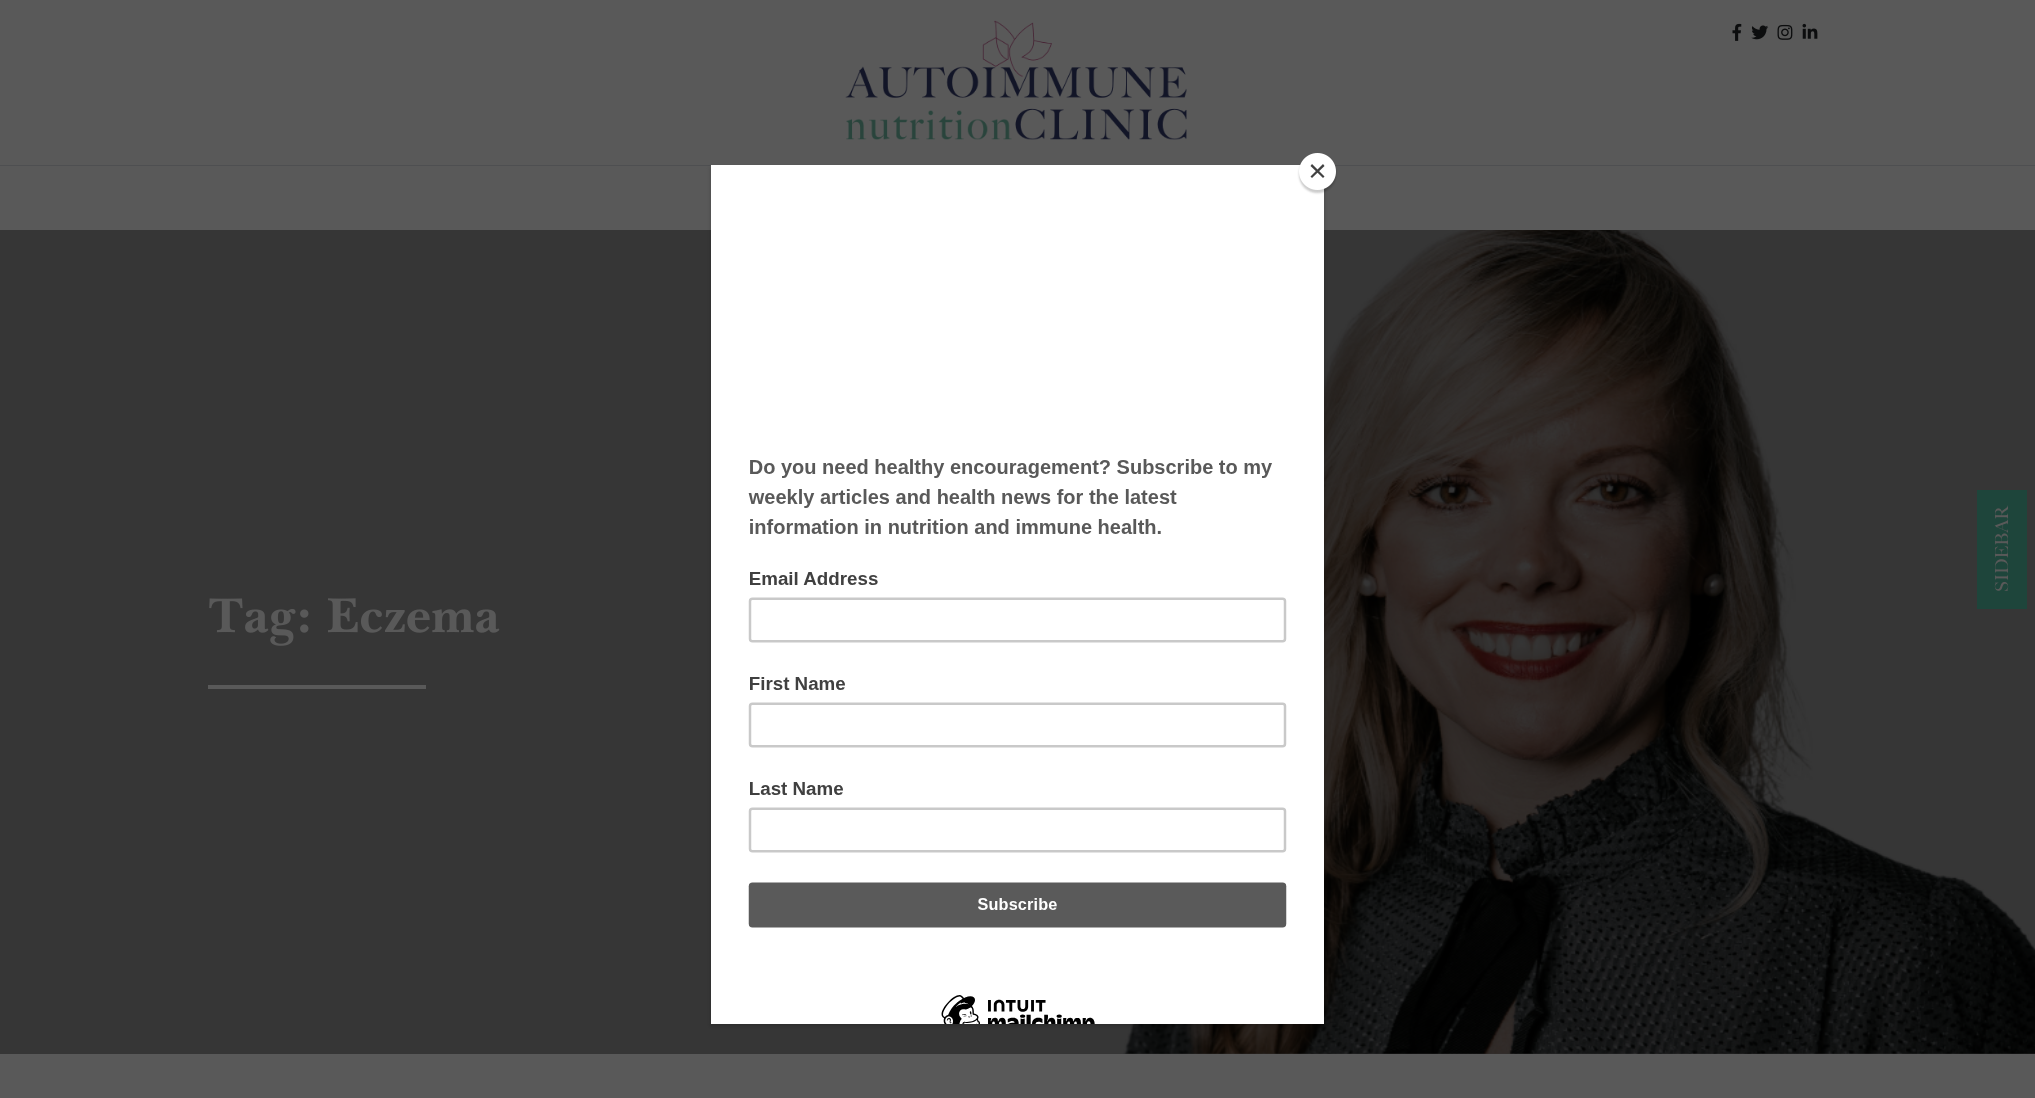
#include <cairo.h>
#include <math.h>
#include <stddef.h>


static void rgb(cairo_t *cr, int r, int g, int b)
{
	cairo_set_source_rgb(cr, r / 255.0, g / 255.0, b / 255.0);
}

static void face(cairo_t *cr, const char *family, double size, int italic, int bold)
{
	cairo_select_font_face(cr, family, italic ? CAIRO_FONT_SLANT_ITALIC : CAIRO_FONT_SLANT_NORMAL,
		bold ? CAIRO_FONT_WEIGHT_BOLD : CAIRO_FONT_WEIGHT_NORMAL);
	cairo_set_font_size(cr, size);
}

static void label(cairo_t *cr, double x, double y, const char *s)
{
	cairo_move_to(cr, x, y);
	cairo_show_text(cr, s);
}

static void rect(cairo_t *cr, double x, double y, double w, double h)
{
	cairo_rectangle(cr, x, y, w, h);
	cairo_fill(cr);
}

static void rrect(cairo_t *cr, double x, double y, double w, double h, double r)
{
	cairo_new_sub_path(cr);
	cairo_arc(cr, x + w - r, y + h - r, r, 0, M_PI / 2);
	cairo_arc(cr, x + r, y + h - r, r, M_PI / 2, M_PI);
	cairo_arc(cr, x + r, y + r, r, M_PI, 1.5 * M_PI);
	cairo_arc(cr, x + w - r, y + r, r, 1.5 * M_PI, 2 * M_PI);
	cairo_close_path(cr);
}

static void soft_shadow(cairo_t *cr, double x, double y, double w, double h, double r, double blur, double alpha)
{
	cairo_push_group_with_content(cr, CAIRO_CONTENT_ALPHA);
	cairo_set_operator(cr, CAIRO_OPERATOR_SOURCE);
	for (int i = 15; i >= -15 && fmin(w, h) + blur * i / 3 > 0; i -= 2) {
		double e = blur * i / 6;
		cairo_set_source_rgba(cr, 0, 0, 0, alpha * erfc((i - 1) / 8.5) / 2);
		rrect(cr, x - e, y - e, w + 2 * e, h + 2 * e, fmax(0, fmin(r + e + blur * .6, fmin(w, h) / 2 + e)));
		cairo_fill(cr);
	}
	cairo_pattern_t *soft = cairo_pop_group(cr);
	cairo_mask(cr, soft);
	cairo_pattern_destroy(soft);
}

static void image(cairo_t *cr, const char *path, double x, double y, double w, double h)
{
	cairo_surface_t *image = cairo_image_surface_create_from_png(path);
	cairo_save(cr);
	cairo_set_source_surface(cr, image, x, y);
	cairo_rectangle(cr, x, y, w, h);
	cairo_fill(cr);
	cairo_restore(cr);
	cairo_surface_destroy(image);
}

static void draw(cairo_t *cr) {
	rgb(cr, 89, 89, 89);
	cairo_paint(cr);
	rgb(cr, 54, 54, 54);
	rect(cr, 0, 230, 2035, 824);
	image(cr, "image0.png", 845, 20, 342, 120);
	image(cr, "image1.png", 1732, 23, 10, 18);
	image(cr, "image2.png", 1751, 25, 18, 15);
	image(cr, "image3.png", 1777, 24, 16, 16);
	image(cr, "image4.png", 1802, 23, 16, 16);
	rgb(cr, 78, 79, 81);
	rect(cr, 0, 165, 2035, 1);
	image(cr, "image6.png", 1123, 230, 912, 824);
	rgb(cr, 0, 0, 0);
	soft_shadow(cr, 711, 168, 613, 858, 0, 2.5, 0.2);
	image(cr, "image5.png", 711, 165, 613, 859);
	soft_shadow(cr, 1299, 155, 37, 38, 18.5, 1, 0.2);
	rgb(cr, 255, 255, 255);
	cairo_arc(cr, 1317.5, 171.5, 18.5, 0, 2 * M_PI);
	cairo_fill(cr);
	rgb(cr, 65, 65, 65);
	cairo_new_path(cr);
	cairo_move_to(cr, 1323, 164);
	cairo_line_to(cr, 1324.5, 166);
	cairo_line_to(cr, 1312, 178);
	cairo_line_to(cr, 1310.5, 176.5);
	cairo_close_path(cr);
	cairo_fill(cr);
	cairo_new_path(cr);
	cairo_move_to(cr, 1310.5, 166);
	cairo_line_to(cr, 1312, 164);
	cairo_line_to(cr, 1324.5, 176.5);
	cairo_line_to(cr, 1323, 178);
	cairo_close_path(cr);
	cairo_fill(cr);
	rgb(cr, 30, 69, 59);
	rect(cr, 1977, 490, 50, 119);
	face(cr, "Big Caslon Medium", 18, 0, 0);
	rgb(cr, 89, 89, 89);
	cairo_save(cr);
	cairo_translate(cr, 2008, 592);
	cairo_rotate(cr, -90 * M_PI / 180);
	label(cr, 0, 0, "SIDEBAR");
	cairo_restore(cr);
	face(cr, "Baskerville", 50, 0, 1);
	label(cr, 208, 632, "Tag: Eczema");
	rect(cr, 208, 685, 218, 4);
}

int main(void) {
	cairo_surface_t *surface = cairo_image_surface_create(CAIRO_FORMAT_RGB24, 2035, 1098);
	cairo_t *cr = cairo_create(surface);
	cairo_font_options_t *options = cairo_font_options_create();
	cairo_font_options_set_hint_metrics(options, CAIRO_HINT_METRICS_OFF);
	cairo_font_options_set_hint_style(options, CAIRO_HINT_STYLE_NONE);
	cairo_set_font_options(cr, options);
	cairo_set_miter_limit(cr, 4);
	draw(cr);
	cairo_surface_write_to_png(surface, "render.png");
	cairo_font_options_destroy(options);
	cairo_destroy(cr);
	cairo_surface_destroy(surface);
	return 0;
}
